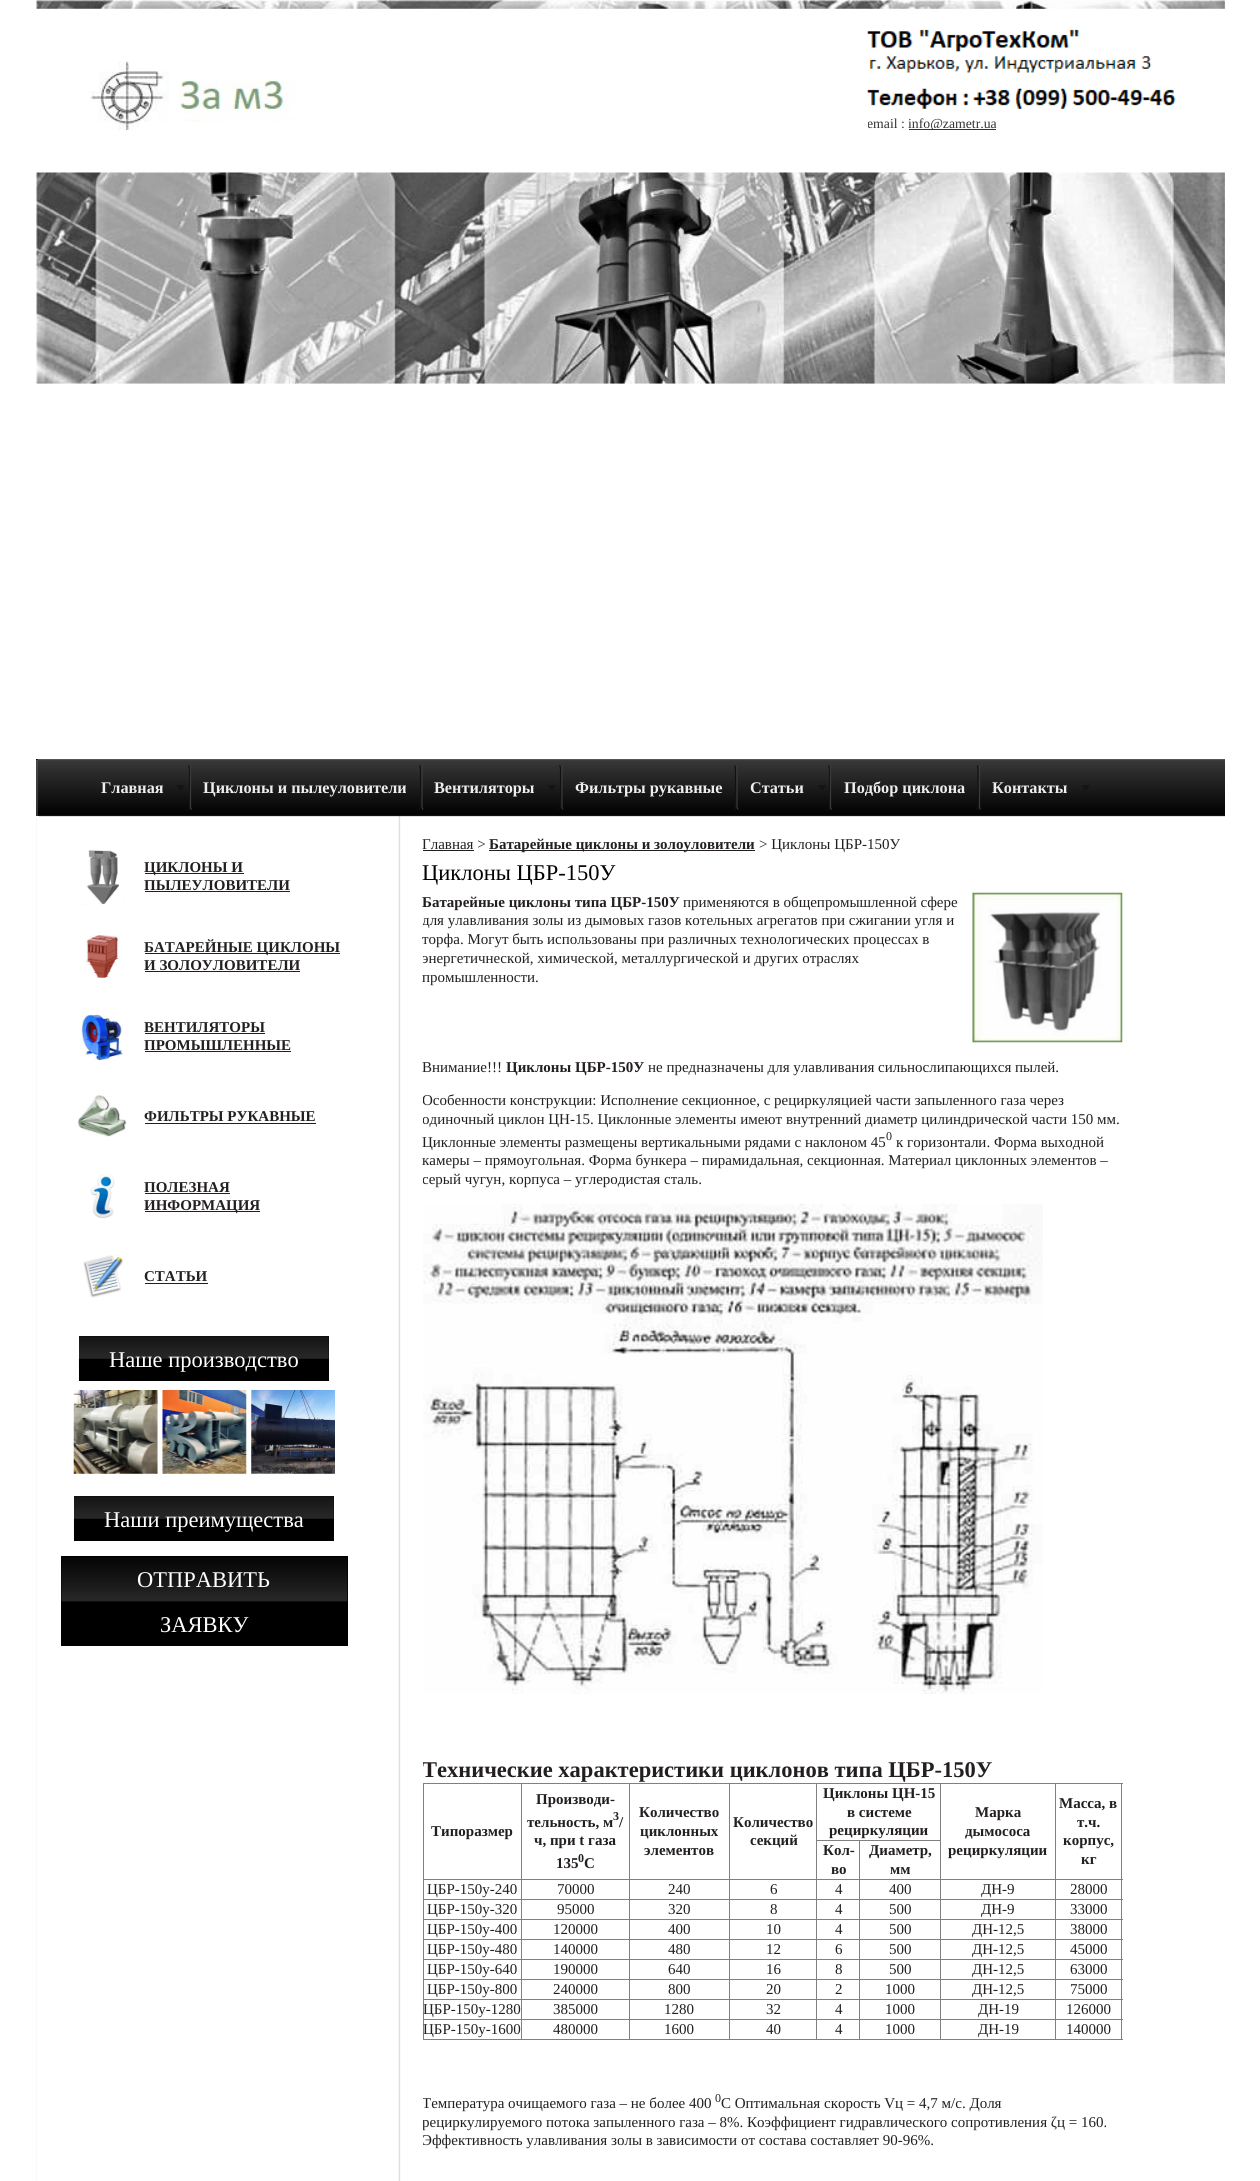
#include <cairo.h>
#include <math.h>
#include <stddef.h>


static void rgb(cairo_t *cr, int r, int g, int b)
{
	cairo_set_source_rgb(cr, r / 255.0, g / 255.0, b / 255.0);
}

static void face(cairo_t *cr, const char *family, double size, int italic, int bold)
{
	cairo_select_font_face(cr, family, italic ? CAIRO_FONT_SLANT_ITALIC : CAIRO_FONT_SLANT_NORMAL,
		bold ? CAIRO_FONT_WEIGHT_BOLD : CAIRO_FONT_WEIGHT_NORMAL);
	cairo_set_font_size(cr, size);
}

static void label(cairo_t *cr, double x, double y, const char *s)
{
	cairo_move_to(cr, x, y);
	cairo_show_text(cr, s);
}

static void rect(cairo_t *cr, double x, double y, double w, double h)
{
	cairo_rectangle(cr, x, y, w, h);
	cairo_fill(cr);
}

static void image(cairo_t *cr, const char *path, double x, double y, double w, double h)
{
	cairo_surface_t *image = cairo_image_surface_create_from_png(path);
	cairo_save(cr);
	cairo_set_source_surface(cr, image, x, y);
	cairo_rectangle(cr, x, y, w, h);
	cairo_fill(cr);
	cairo_restore(cr);
	cairo_surface_destroy(image);
}

static void draw(cairo_t *cr) {
	cairo_pattern_t *gradient;
	rgb(cr, 255, 255, 255);
	cairo_paint(cr);
	image(cr, "image0.png", 36, 0, 1189, 9);
	image(cr, "image1.png", 89, 61, 207, 69);
	image(cr, "image2.png", 867, 29, 309, 80);
	cairo_save(cr);
	cairo_rectangle(cr, 868, 9, 357, 121);
	cairo_clip(cr);
	face(cr, "Liberation Serif", 13.75, 0, 0);
	rgb(cr, 51, 51, 51);
	label(cr, 867, 128, "email :");
	cairo_restore(cr);
	rgb(cr, 51, 51, 51);
	rect(cr, 909, 129, 87, 1);
	cairo_save(cr);
	cairo_rectangle(cr, 868, 9, 357, 121);
	cairo_clip(cr);
	face(cr, "Liberation Serif", 13.75, 0, 0);
	label(cr, 908, 128, "info@zametr.ua");
	cairo_restore(cr);
	image(cr, "image3.png", 36, 172, 1189, 212);
	image(cr, "image4.png", 36, 758, 365, 1423);
	gradient = cairo_pattern_create_linear(38, 705, 38, 760);
	cairo_pattern_add_color_stop_rgba(gradient, 0, 0.22, 0.22, 0.22, 1);
	cairo_pattern_add_color_stop_rgba(gradient, 1, 0, 0, 0, 1);
	cairo_set_source(cr, gradient);
	cairo_pattern_destroy(gradient);
	rect(cr, 36, 759, 3, 1);
	gradient = cairo_pattern_create_linear(38, 760, 38, 815);
	cairo_pattern_add_color_stop_rgba(gradient, 0, 0.22, 0.22, 0.22, 1);
	cairo_pattern_add_color_stop_rgba(gradient, 1, 0, 0, 0, 1);
	cairo_set_source(cr, gradient);
	cairo_pattern_destroy(gradient);
	rect(cr, 36, 760, 1189, 55);
	gradient = cairo_pattern_create_linear(38, 815, 38, 870);
	cairo_pattern_add_color_stop_rgba(gradient, 0, 0.22, 0.22, 0.22, 1);
	cairo_pattern_add_color_stop_rgba(gradient, 1, 0, 0, 0, 1);
	cairo_set_source(cr, gradient);
	cairo_pattern_destroy(gradient);
	rect(cr, 36, 815, 3, 1);
	cairo_save(cr);
	cairo_rectangle(cr, 36, 759, 1189, 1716);
	cairo_clip(cr);
	cairo_new_path(cr);
	cairo_move_to(cr, 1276.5, 815);
	cairo_line_to(cr, 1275, 815.5);
	cairo_line_to(cr, 39, 815.5);
	cairo_line_to(cr, 37.5, 815);
	rgb(cr, 17, 17, 17);
	cairo_set_line_width(cr, 1.2);
	cairo_stroke(cr);
	cairo_new_path(cr);
	cairo_move_to(cr, 37.5, 815);
	cairo_line_to(cr, 37, 814);
	cairo_line_to(cr, 37, 760.5);
	cairo_line_to(cr, 38.5, 759.5);
	cairo_line_to(cr, 657, 759.5);
	cairo_line_to(cr, 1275.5, 759.5);
	cairo_line_to(cr, 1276.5, 760.5);
	cairo_line_to(cr, 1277, 814);
	cairo_line_to(cr, 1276.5, 815);
	rgb(cr, 84, 84, 84);
	cairo_stroke(cr);
	cairo_restore(cr);
	image(cr, "image5.png", 176, 785, 9, 6);
	cairo_new_path(cr);
	cairo_move_to(cr, 188.5, 765.5);
	cairo_line_to(cr, 189.5, 767.5);
	cairo_line_to(cr, 189.5, 807.5);
	cairo_line_to(cr, 188.5, 809.5);
	rgb(cr, 17, 17, 17);
	cairo_set_line_width(cr, 1.2);
	cairo_stroke(cr);
	face(cr, "Liberation Serif", 16.25, 0, 1);
	rgb(cr, 238, 238, 238);
	label(cr, 101, 793, "Главная");
	cairo_new_path(cr);
	cairo_move_to(cr, 419.5, 765.5);
	cairo_line_to(cr, 420.5, 767.5);
	cairo_line_to(cr, 420.5, 807.5);
	cairo_line_to(cr, 419.5, 809.5);
	rgb(cr, 17, 17, 17);
	cairo_stroke(cr);
	cairo_new_path(cr);
	cairo_move_to(cr, 191.5, 809.5);
	cairo_line_to(cr, 190.5, 807.5);
	cairo_line_to(cr, 190.5, 767.5);
	cairo_line_to(cr, 191.5, 765.5);
	rgb(cr, 59, 59, 59);
	cairo_stroke(cr);
	rgb(cr, 238, 238, 238);
	label(cr, 203, 793, "Циклоны и пылеуловители");
	image(cr, "image6.png", 548, 785, 8, 5);
	cairo_new_path(cr);
	cairo_move_to(cr, 559.5, 765.5);
	cairo_line_to(cr, 560.5, 767.5);
	cairo_line_to(cr, 560.5, 807.5);
	cairo_line_to(cr, 559.5, 809.5);
	rgb(cr, 17, 17, 17);
	cairo_stroke(cr);
	cairo_new_path(cr);
	cairo_move_to(cr, 423, 809.5);
	cairo_line_to(cr, 422, 807.5);
	cairo_line_to(cr, 422, 767.5);
	cairo_line_to(cr, 423, 765.5);
	rgb(cr, 59, 59, 59);
	cairo_stroke(cr);
	rgb(cr, 238, 238, 238);
	label(cr, 434, 793, "Вентиляторы");
	cairo_new_path(cr);
	cairo_move_to(cr, 734.5, 765.5);
	cairo_line_to(cr, 735.5, 767.5);
	cairo_line_to(cr, 735.5, 807.5);
	cairo_line_to(cr, 734.5, 809.5);
	rgb(cr, 17, 17, 17);
	cairo_stroke(cr);
	cairo_new_path(cr);
	cairo_move_to(cr, 563, 809.5);
	cairo_line_to(cr, 562, 807.5);
	cairo_line_to(cr, 562, 767.5);
	cairo_line_to(cr, 563, 765.5);
	rgb(cr, 59, 59, 59);
	cairo_stroke(cr);
	rgb(cr, 238, 238, 238);
	label(cr, 575, 793, "Фильтры рукавные");
	image(cr, "image7.png", 818, 785, 8, 5);
	cairo_new_path(cr);
	cairo_move_to(cr, 828.5, 765.5);
	cairo_line_to(cr, 829.5, 767.5);
	cairo_line_to(cr, 829.5, 807.5);
	cairo_line_to(cr, 828.5, 809.5);
	rgb(cr, 17, 17, 17);
	cairo_stroke(cr);
	cairo_new_path(cr);
	cairo_move_to(cr, 738, 809.5);
	cairo_line_to(cr, 737, 807.5);
	cairo_line_to(cr, 737, 767.5);
	cairo_line_to(cr, 738, 765.5);
	rgb(cr, 59, 59, 59);
	cairo_stroke(cr);
	rgb(cr, 238, 238, 238);
	label(cr, 750, 793, "Статьи");
	cairo_new_path(cr);
	cairo_move_to(cr, 977, 765.5);
	cairo_line_to(cr, 978, 767.5);
	cairo_line_to(cr, 978, 807.5);
	cairo_line_to(cr, 977, 809.5);
	rgb(cr, 17, 17, 17);
	cairo_stroke(cr);
	cairo_new_path(cr);
	cairo_move_to(cr, 831.5, 809.5);
	cairo_line_to(cr, 830.5, 807.5);
	cairo_line_to(cr, 830.5, 767.5);
	cairo_line_to(cr, 831.5, 765.5);
	rgb(cr, 59, 59, 59);
	cairo_stroke(cr);
	rgb(cr, 238, 238, 238);
	label(cr, 844, 793, "Подбор циклона");
	image(cr, "image5.png", 1081, 785, 9, 6);
	cairo_new_path(cr);
	cairo_move_to(cr, 980.5, 809.5);
	cairo_line_to(cr, 979.5, 807.5);
	cairo_line_to(cr, 979.5, 767.5);
	cairo_line_to(cr, 980.5, 765.5);
	rgb(cr, 59, 59, 59);
	cairo_stroke(cr);
	rgb(cr, 238, 238, 238);
	label(cr, 992, 793, "Контакты");
	image(cr, "image8.png", 83, 850, 41, 55);
	rgb(cr, 35, 31, 32);
	rect(cr, 145, 873, 99, 1);
	face(cr, "Liberation Serif", 15, 0, 1);
	label(cr, 144, 872, "ЦИКЛОНЫ И");
	label(cr, 144, 890, "ПЫЛЕУЛОВИТЕЛИ");
	rect(cr, 145, 891, 145, 1);
	image(cr, "image9.png", 85, 935, 42, 43);
	rect(cr, 145, 953, 195, 1);
	label(cr, 144, 952, "БАТАРЕЙНЫЕ ЦИКЛОНЫ");
	label(cr, 144, 970, "И ЗОЛОУЛОВИТЕЛИ");
	rect(cr, 145, 971, 155, 1);
	image(cr, "image10.png", 77, 1014, 46, 47);
	label(cr, 144, 1032, "ВЕНТИЛЯТОРЫ");
	rect(cr, 145, 1033, 120, 1);
	label(cr, 144, 1050, "ПРОМЫШЛЕННЫЕ");
	rect(cr, 145, 1051, 146, 1);
	image(cr, "image11.png", 78, 1095, 49, 43);
	label(cr, 144, 1121, "ФИЛЬТРЫ РУКАВНЫЕ");
	rect(cr, 145, 1123, 171, 1);
	image(cr, "image12.png", 81, 1171, 34, 48);
	label(cr, 144, 1192, "ПОЛЕЗНАЯ");
	rect(cr, 145, 1193, 85, 1);
	rect(cr, 145, 1211, 115, 1);
	label(cr, 144, 1210, "ИНФОРМАЦИЯ");
	image(cr, "image13.png", 83, 1255, 40, 43);
	label(cr, 144, 1281, "СТАТЬИ");
	rect(cr, 145, 1283, 63, 1);
	rgb(cr, 0, 0, 0);
	rect(cr, 79, 1336, 250, 45);
	image(cr, "image14.png", 78, 1336, 251, 45);
	face(cr, "Liberation Serif", 22.5, 0, 0);
	rgb(cr, 255, 255, 255);
	label(cr, 109, 1367, "Наше производство");
	image(cr, "image15.png", 73, 1390, 85, 84);
	image(cr, "image16.png", 162, 1390, 85, 84);
	image(cr, "image17.png", 251, 1390, 84, 84);
	rgb(cr, 0, 0, 0);
	rect(cr, 74, 1496, 260, 45);
	image(cr, "image18.png", 73, 1496, 261, 45);
	rgb(cr, 255, 255, 255);
	label(cr, 104, 1527, "Наши преимущества");
	rgb(cr, 0, 0, 0);
	rect(cr, 61, 1556, 287, 90);
	image(cr, "image19.png", 61, 1557, 287, 45);
	rgb(cr, 255, 255, 255);
	label(cr, 137, 1587, "ОТПРАВИТЬ");
	label(cr, 160, 1632, "ЗАЯВКУ");
	face(cr, "Liberation Serif", 15, 0, 0);
	rgb(cr, 35, 31, 32);
	label(cr, 422, 849, "Главная >");
	rect(cr, 423, 850, 51, 1);
	rect(cr, 489, 850, 266, 1);
	face(cr, "Liberation Serif", 15, 0, 1);
	label(cr, 489, 849, "Батарейные циклоны и золоуловители");
	face(cr, "Liberation Serif", 15, 0, 0);
	label(cr, 759, 849, "> Циклоны ЦБР-150У");
	face(cr, "Liberation Serif", 22.5, 0, 0);
	rgb(cr, 0, 0, 0);
	label(cr, 422, 880, "Циклоны ЦБР-150У");
	face(cr, "Liberation Serif", 15, 0, 1);
	rgb(cr, 35, 31, 32);
	label(cr, 422, 907, "Батарейные циклоны типа ЦБР-150У");
	image(cr, "image20.png", 972, 892, 151, 151);
	face(cr, "Liberation Serif", 15, 0, 0);
	label(cr, 683, 907, "применяются в общепромышленной сфере");
	cairo_save(cr);
	cairo_rectangle(cr, 423, 893, 700, 150);
	cairo_clip(cr);
	label(cr, 422, 925, "для улавливания золы из дымовых газов котельных агрегатов при сжигании угля и");
	cairo_restore(cr);
	label(cr, 422, 944, "торфа. Могут быть использованы при различных технологических процессах в");
	cairo_save(cr);
	cairo_rectangle(cr, 423, 893, 700, 150);
	cairo_clip(cr);
	label(cr, 422, 963, "энергетичнеской, химической, металлургической и других отраслях");
	cairo_restore(cr);
	label(cr, 422, 982, "промышленности.");
	label(cr, 422, 1072, "Внимание!!!");
	face(cr, "Liberation Serif", 15, 0, 1);
	label(cr, 506, 1072, "Циклоны ЦБР-150У");
	face(cr, "Liberation Serif", 15, 0, 0);
	label(cr, 648, 1072, "не предназначены для улавливания сильнослипающихся пылей.");
	cairo_save(cr);
	cairo_rectangle(cr, 423, 1043, 700, 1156);
	cairo_clip(cr);
	label(cr, 422, 1105, "Особенности конструкции: Исполнение секционное, с рециркуляцией части запыленного газа через");
	label(cr, 422, 1124, "одиночный циклон ЦН-15. Циклонные элементы имеют внутренний диаметр цилиндрической части 150 мм.");
	cairo_restore(cr);
	label(cr, 422, 1147, "Циклонные элементы размещены вертикальными рядами с наклоном 45");
	face(cr, "Liberation Serif", 12, 0, 0);
	label(cr, 886, 1140, "0");
	face(cr, "Liberation Serif", 15, 0, 0);
	label(cr, 896, 1147, "к горизонтали. Форма выходной");
	label(cr, 422, 1165, "камеры – прямоугольная. Форма бункера – пирамидальная, секционная. Материал циклонных элементов –");
	cairo_save(cr);
	cairo_rectangle(cr, 423, 1043, 700, 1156);
	cairo_clip(cr);
	label(cr, 422, 1184, "серый чугун, корпуса – углеродистая сталь.");
	cairo_restore(cr);
	image(cr, "image21.png", 423, 1203, 620, 491);
	cairo_save(cr);
	cairo_rectangle(cr, 423, 1043, 700, 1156);
	cairo_clip(cr);
	face(cr, "Liberation Serif", 22.5, 0, 1);
	label(cr, 422, 1777, "Технические характеристики циклонов типа ЦБР-150У");
	cairo_restore(cr);
	rgb(cr, 128, 128, 128);
	rect(cr, 423, 1783, 700, 1);
	rect(cr, 1121, 1783, 1, 257);
	rect(cr, 423, 2039, 700, 1);
	rect(cr, 423, 1783, 1, 257);
	face(cr, "Liberation Serif", 15, 0, 1);
	rgb(cr, 35, 31, 32);
	label(cr, 431, 1836, "Типоразмер");
	rgb(cr, 128, 128, 128);
	rect(cr, 1055, 1879, 68, 1);
	rect(cr, 1055, 1899, 68, 1);
	rect(cr, 1055, 1919, 68, 1);
	rect(cr, 1055, 1939, 68, 1);
	rect(cr, 1055, 1959, 68, 1);
	rect(cr, 1055, 1979, 68, 1);
	rect(cr, 1055, 1999, 68, 1);
	rect(cr, 1055, 2019, 68, 1);
	rect(cr, 1055, 2019, 1, 21);
	rect(cr, 940, 2019, 116, 1);
	rect(cr, 1055, 1999, 1, 21);
	rect(cr, 940, 1999, 116, 1);
	rect(cr, 1055, 1979, 1, 21);
	rect(cr, 940, 1979, 116, 1);
	rect(cr, 1055, 1959, 1, 21);
	rect(cr, 940, 1959, 116, 1);
	rect(cr, 1055, 1939, 1, 21);
	rect(cr, 940, 1939, 116, 1);
	rect(cr, 1055, 1919, 1, 21);
	rect(cr, 940, 1919, 116, 1);
	rect(cr, 1055, 1899, 1, 21);
	rect(cr, 940, 1899, 116, 1);
	rect(cr, 1055, 1879, 1, 21);
	rect(cr, 940, 1879, 116, 1);
	rect(cr, 940, 2019, 1, 21);
	rect(cr, 859, 2019, 82, 1);
	rect(cr, 940, 1999, 1, 21);
	rect(cr, 859, 1999, 82, 1);
	rect(cr, 940, 1979, 1, 21);
	rect(cr, 859, 1979, 82, 1);
	rect(cr, 940, 1959, 1, 21);
	rect(cr, 859, 1959, 82, 1);
	rect(cr, 940, 1939, 1, 21);
	rect(cr, 859, 1939, 82, 1);
	rect(cr, 940, 1919, 1, 21);
	rect(cr, 859, 1919, 82, 1);
	rect(cr, 940, 1899, 1, 21);
	rect(cr, 859, 1899, 82, 1);
	rect(cr, 940, 1879, 1, 21);
	rect(cr, 859, 1879, 82, 1);
	rect(cr, 859, 2019, 1, 21);
	rect(cr, 816, 2019, 44, 1);
	rect(cr, 859, 1999, 1, 21);
	rect(cr, 816, 1999, 44, 1);
	rect(cr, 859, 1979, 1, 21);
	rect(cr, 816, 1979, 44, 1);
	rect(cr, 859, 1959, 1, 21);
	rect(cr, 816, 1959, 44, 1);
	rect(cr, 859, 1939, 1, 21);
	rect(cr, 816, 1939, 44, 1);
	rect(cr, 859, 1919, 1, 21);
	rect(cr, 816, 1919, 44, 1);
	rect(cr, 859, 1899, 1, 21);
	rect(cr, 816, 1899, 44, 1);
	rect(cr, 859, 1879, 1, 21);
	rect(cr, 816, 1879, 44, 1);
	rect(cr, 816, 2019, 1, 21);
	rect(cr, 729, 2019, 89, 1);
	rect(cr, 816, 1999, 1, 21);
	rect(cr, 729, 1999, 89, 1);
	rect(cr, 816, 1979, 1, 21);
	rect(cr, 729, 1979, 89, 1);
	rect(cr, 816, 1959, 1, 21);
	rect(cr, 729, 1959, 89, 1);
	rect(cr, 816, 1939, 1, 21);
	rect(cr, 729, 1939, 89, 1);
	rect(cr, 816, 1919, 1, 21);
	rect(cr, 729, 1919, 89, 1);
	rect(cr, 816, 1899, 1, 21);
	rect(cr, 729, 1899, 89, 1);
	rect(cr, 816, 1879, 1, 21);
	rect(cr, 729, 1879, 89, 1);
	rect(cr, 729, 2019, 1, 21);
	rect(cr, 629, 2019, 101, 1);
	rect(cr, 729, 1999, 1, 21);
	rect(cr, 629, 1999, 101, 1);
	rect(cr, 729, 1979, 1, 21);
	rect(cr, 629, 1979, 101, 1);
	rect(cr, 729, 1959, 1, 21);
	rect(cr, 629, 1959, 101, 1);
	rect(cr, 729, 1939, 1, 21);
	rect(cr, 629, 1939, 101, 1);
	rect(cr, 729, 1919, 1, 21);
	rect(cr, 629, 1919, 101, 1);
	rect(cr, 729, 1899, 1, 21);
	rect(cr, 629, 1899, 101, 1);
	rect(cr, 729, 1879, 1, 21);
	rect(cr, 629, 1879, 101, 1);
	rect(cr, 629, 2019, 1, 21);
	rect(cr, 521, 2019, 109, 1);
	rect(cr, 629, 1999, 1, 21);
	rect(cr, 521, 1999, 109, 1);
	rect(cr, 629, 1979, 1, 21);
	rect(cr, 521, 1979, 109, 1);
	rect(cr, 629, 1959, 1, 21);
	rect(cr, 521, 1959, 109, 1);
	rect(cr, 629, 1939, 1, 21);
	rect(cr, 521, 1939, 109, 1);
	rect(cr, 629, 1919, 1, 21);
	rect(cr, 521, 1919, 109, 1);
	rect(cr, 629, 1899, 1, 21);
	rect(cr, 521, 1899, 109, 1);
	rect(cr, 629, 1879, 1, 21);
	rect(cr, 521, 1879, 109, 1);
	rect(cr, 521, 2019, 1, 21);
	rect(cr, 423, 2019, 100, 1);
	rect(cr, 521, 1999, 1, 21);
	rect(cr, 423, 1999, 100, 1);
	rect(cr, 521, 1979, 1, 21);
	rect(cr, 423, 1979, 100, 1);
	rect(cr, 521, 1959, 1, 21);
	rect(cr, 423, 1959, 100, 1);
	rect(cr, 521, 1939, 1, 21);
	rect(cr, 423, 1939, 100, 1);
	rect(cr, 521, 1919, 1, 21);
	rect(cr, 423, 1919, 100, 1);
	rect(cr, 521, 1899, 1, 21);
	rect(cr, 423, 1899, 100, 1);
	rect(cr, 521, 1879, 1, 21);
	rect(cr, 423, 1879, 100, 1);
	rect(cr, 521, 1783, 1, 97);
	rgb(cr, 35, 31, 32);
	label(cr, 536, 1804, "Производи-");
	face(cr, "Liberation Serif", 12, 0, 1);
	label(cr, 613, 1820, "3");
	face(cr, "Liberation Serif", 15, 0, 1);
	label(cr, 527, 1827, "тельность, м");
	label(cr, 619, 1827, "/");
	label(cr, 534, 1845, "ч, при t газа");
	label(cr, 556, 1868, "135");
	face(cr, "Liberation Serif", 12, 0, 1);
	label(cr, 578, 1862, "0");
	face(cr, "Liberation Serif", 15, 0, 1);
	label(cr, 584, 1868, "С");
	rgb(cr, 128, 128, 128);
	rect(cr, 629, 1783, 1, 97);
	rgb(cr, 35, 31, 32);
	label(cr, 639, 1817, "Количество");
	label(cr, 640, 1836, "циклонных");
	label(cr, 644, 1855, "элементов");
	rgb(cr, 128, 128, 128);
	rect(cr, 729, 1783, 1, 97);
	rgb(cr, 35, 31, 32);
	label(cr, 733, 1827, "Количество");
	label(cr, 750, 1845, "секций");
	label(cr, 823, 1798, "Циклоны ЦН-15");
	label(cr, 847, 1817, "в системе");
	label(cr, 829, 1835, "рециркуляции");
	rgb(cr, 128, 128, 128);
	rect(cr, 859, 1840, 82, 1);
	rect(cr, 940, 1783, 1, 97);
	rgb(cr, 35, 31, 32);
	label(cr, 975, 1817, "Марка");
	label(cr, 965, 1836, "дымососа");
	label(cr, 948, 1855, "рециркуляции");
	rgb(cr, 128, 128, 128);
	rect(cr, 1055, 1783, 1, 97);
	rgb(cr, 35, 31, 32);
	label(cr, 1059, 1808, "Масса, в");
	label(cr, 1077, 1827, "т.ч.");
	label(cr, 1063, 1845, "корпус,");
	label(cr, 1081, 1864, "кг");
	rgb(cr, 128, 128, 128);
	rect(cr, 859, 1840, 1, 40);
	rect(cr, 816, 1840, 44, 1);
	rect(cr, 816, 1783, 1, 97);
	rgb(cr, 35, 31, 32);
	label(cr, 823, 1855, "Кол-");
	label(cr, 831, 1874, "во");
	label(cr, 869, 1855, "Диаметр,");
	label(cr, 890, 1874, "мм");
	face(cr, "Liberation Serif", 15, 0, 0);
	label(cr, 427, 1894, "ЦБР-150у-240");
	label(cr, 557, 1894, "70000");
	label(cr, 668, 1894, "240");
	label(cr, 770, 1894, "6");
	label(cr, 835, 1894, "4");
	label(cr, 889, 1894, "400");
	label(cr, 981, 1894, "ДН-9");
	label(cr, 1070, 1894, "28000");
	label(cr, 427, 1914, "ЦБР-150у-320");
	label(cr, 557, 1914, "95000");
	label(cr, 668, 1914, "320");
	label(cr, 770, 1914, "8");
	label(cr, 835, 1914, "4");
	label(cr, 889, 1914, "500");
	label(cr, 981, 1914, "ДН-9");
	label(cr, 1070, 1914, "33000");
	label(cr, 427, 1934, "ЦБР-150у-400");
	label(cr, 553, 1934, "120000");
	label(cr, 668, 1934, "400");
	label(cr, 766, 1934, "10");
	label(cr, 835, 1934, "4");
	label(cr, 889, 1934, "500");
	label(cr, 972, 1934, "ДН-12,5");
	label(cr, 1070, 1934, "38000");
	label(cr, 427, 1954, "ЦБР-150у-480");
	label(cr, 553, 1954, "140000");
	label(cr, 668, 1954, "480");
	label(cr, 766, 1954, "12");
	label(cr, 835, 1954, "6");
	label(cr, 889, 1954, "500");
	label(cr, 972, 1954, "ДН-12,5");
	label(cr, 1070, 1954, "45000");
	label(cr, 427, 1974, "ЦБР-150у-640");
	label(cr, 553, 1974, "190000");
	label(cr, 668, 1974, "640");
	label(cr, 766, 1974, "16");
	label(cr, 835, 1974, "8");
	label(cr, 889, 1974, "500");
	label(cr, 972, 1974, "ДН-12,5");
	label(cr, 1070, 1974, "63000");
	label(cr, 427, 1994, "ЦБР-150у-800");
	label(cr, 553, 1994, "240000");
	label(cr, 668, 1994, "800");
	label(cr, 766, 1994, "20");
	label(cr, 835, 1994, "2");
	label(cr, 885, 1994, "1000");
	label(cr, 972, 1994, "ДН-12,5");
	label(cr, 1070, 1994, "75000");
	label(cr, 423, 2014, "ЦБР-150у-1280");
	label(cr, 553, 2014, "385000");
	label(cr, 664, 2014, "1280");
	label(cr, 766, 2014, "32");
	label(cr, 835, 2014, "4");
	label(cr, 885, 2014, "1000");
	label(cr, 978, 2014, "ДН-19");
	label(cr, 1066, 2014, "126000");
	label(cr, 423, 2034, "ЦБР-150у-1600");
	label(cr, 553, 2034, "480000");
	label(cr, 664, 2034, "1600");
	label(cr, 766, 2034, "40");
	label(cr, 835, 2034, "4");
	label(cr, 885, 2034, "1000");
	label(cr, 978, 2034, "ДН-19");
	label(cr, 1066, 2034, "140000");
	cairo_save(cr);
	cairo_rectangle(cr, 423, 1043, 700, 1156);
	cairo_clip(cr);
	label(cr, 422, 2108, "Температура очищаемого газа – не более 400");
	cairo_restore(cr);
	face(cr, "Liberation Serif", 12, 0, 0);
	label(cr, 715, 2102, "0");
	face(cr, "Liberation Serif", 15, 0, 0);
	label(cr, 721, 2108, "С Оптимальная скорость Vц = 4,7 м/с. Доля");
	cairo_save(cr);
	cairo_rectangle(cr, 423, 1043, 700, 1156);
	cairo_clip(cr);
	label(cr, 422, 2127, "рециркулируемого потока запыленного газа – 8%. Коэффициент гидравлического сопротивления ζц = 160.");
	label(cr, 422, 2145, "Эффективность улавливания золы в зависимости от состава составляет 90-96%.");
	cairo_restore(cr);
}

int main(void) {
	cairo_surface_t *surface = cairo_image_surface_create(CAIRO_FORMAT_RGB24, 1260, 2181);
	cairo_t *cr = cairo_create(surface);
	cairo_font_options_t *options = cairo_font_options_create();
	cairo_font_options_set_hint_metrics(options, CAIRO_HINT_METRICS_OFF);
	cairo_font_options_set_hint_style(options, CAIRO_HINT_STYLE_NONE);
	cairo_set_font_options(cr, options);
	cairo_set_miter_limit(cr, 4);
	draw(cr);
	cairo_surface_write_to_png(surface, "render.png");
	cairo_font_options_destroy(options);
	cairo_destroy(cr);
	cairo_surface_destroy(surface);
	return 0;
}
